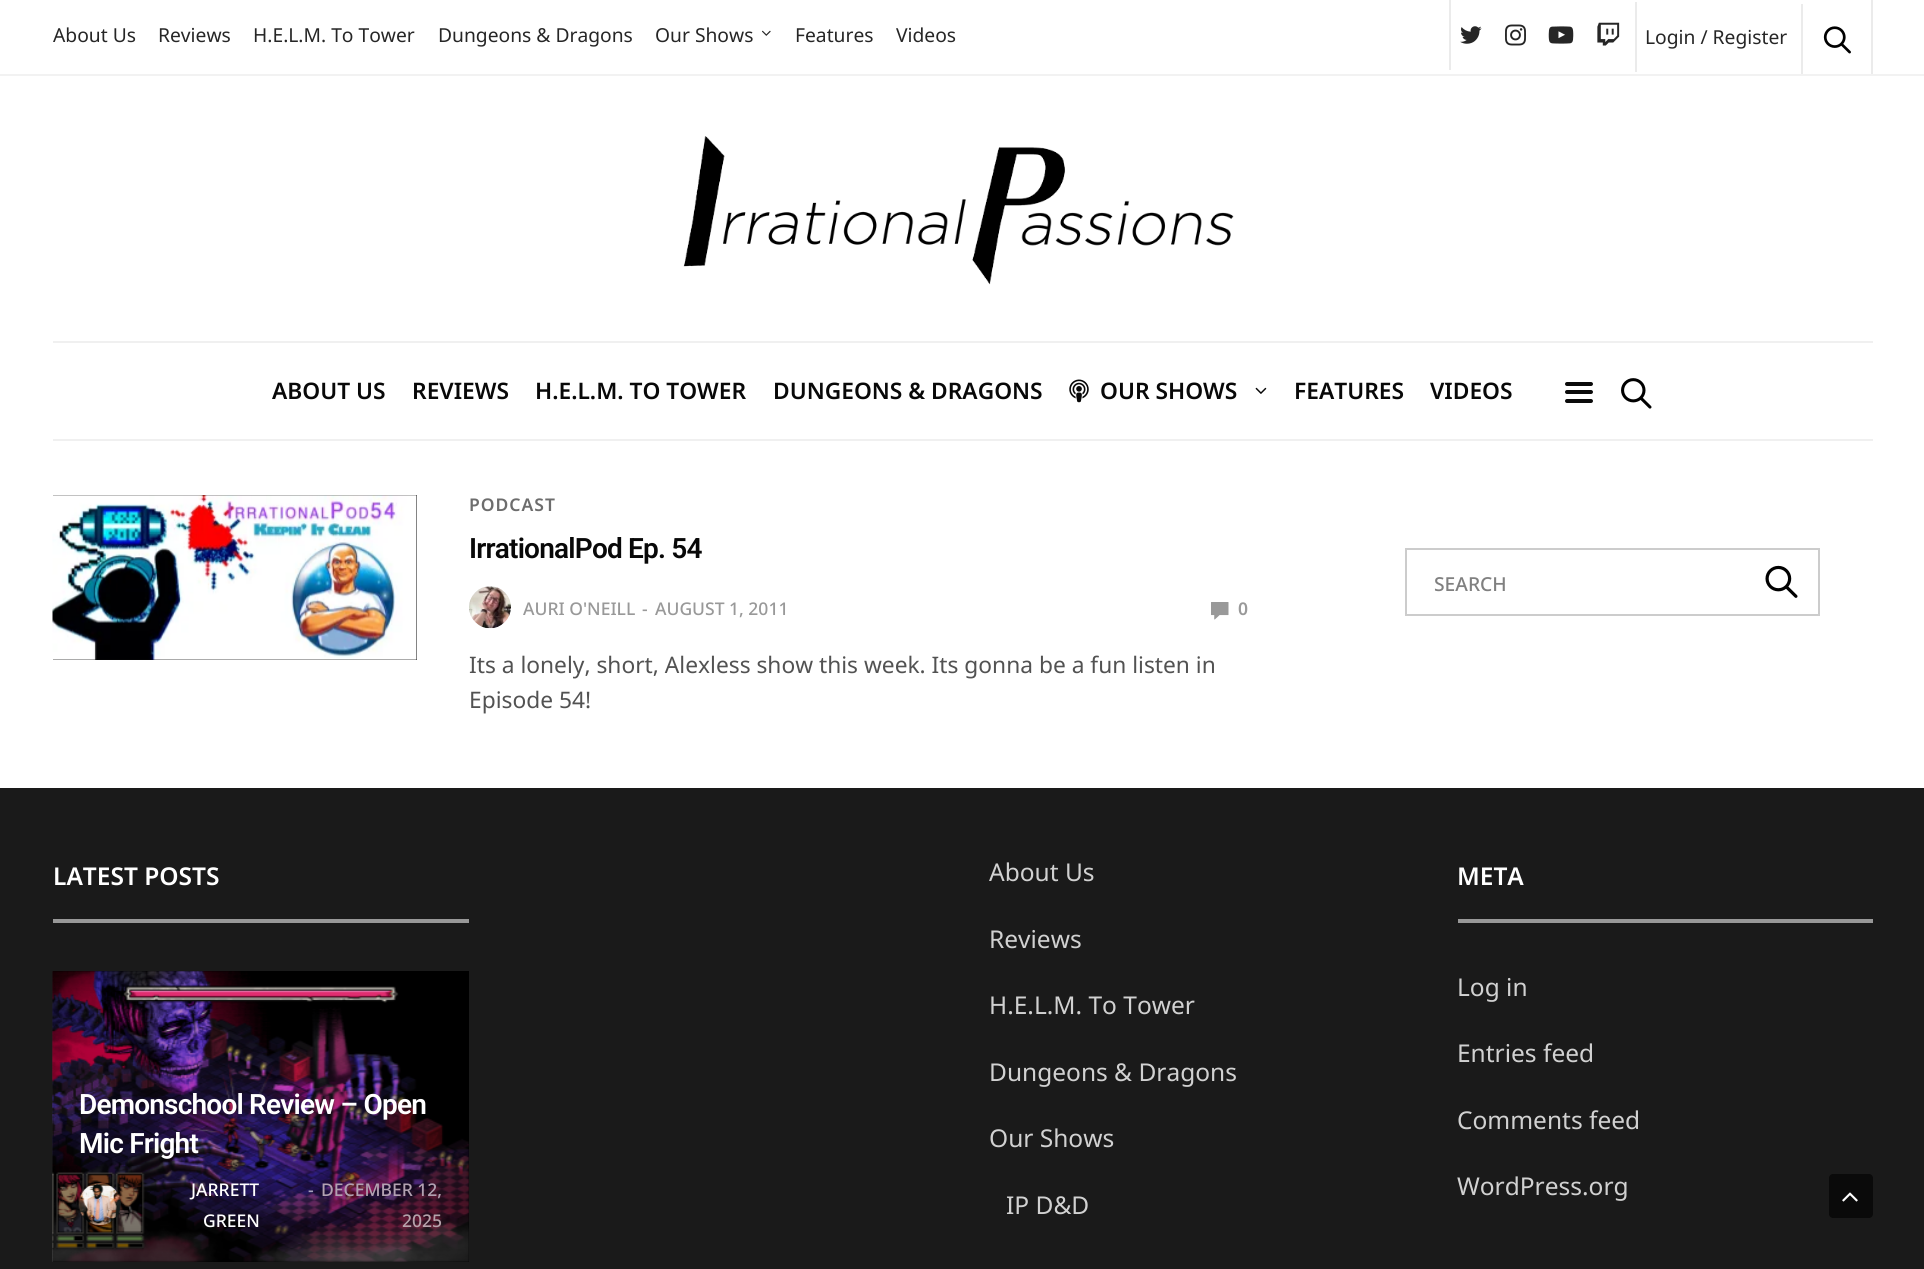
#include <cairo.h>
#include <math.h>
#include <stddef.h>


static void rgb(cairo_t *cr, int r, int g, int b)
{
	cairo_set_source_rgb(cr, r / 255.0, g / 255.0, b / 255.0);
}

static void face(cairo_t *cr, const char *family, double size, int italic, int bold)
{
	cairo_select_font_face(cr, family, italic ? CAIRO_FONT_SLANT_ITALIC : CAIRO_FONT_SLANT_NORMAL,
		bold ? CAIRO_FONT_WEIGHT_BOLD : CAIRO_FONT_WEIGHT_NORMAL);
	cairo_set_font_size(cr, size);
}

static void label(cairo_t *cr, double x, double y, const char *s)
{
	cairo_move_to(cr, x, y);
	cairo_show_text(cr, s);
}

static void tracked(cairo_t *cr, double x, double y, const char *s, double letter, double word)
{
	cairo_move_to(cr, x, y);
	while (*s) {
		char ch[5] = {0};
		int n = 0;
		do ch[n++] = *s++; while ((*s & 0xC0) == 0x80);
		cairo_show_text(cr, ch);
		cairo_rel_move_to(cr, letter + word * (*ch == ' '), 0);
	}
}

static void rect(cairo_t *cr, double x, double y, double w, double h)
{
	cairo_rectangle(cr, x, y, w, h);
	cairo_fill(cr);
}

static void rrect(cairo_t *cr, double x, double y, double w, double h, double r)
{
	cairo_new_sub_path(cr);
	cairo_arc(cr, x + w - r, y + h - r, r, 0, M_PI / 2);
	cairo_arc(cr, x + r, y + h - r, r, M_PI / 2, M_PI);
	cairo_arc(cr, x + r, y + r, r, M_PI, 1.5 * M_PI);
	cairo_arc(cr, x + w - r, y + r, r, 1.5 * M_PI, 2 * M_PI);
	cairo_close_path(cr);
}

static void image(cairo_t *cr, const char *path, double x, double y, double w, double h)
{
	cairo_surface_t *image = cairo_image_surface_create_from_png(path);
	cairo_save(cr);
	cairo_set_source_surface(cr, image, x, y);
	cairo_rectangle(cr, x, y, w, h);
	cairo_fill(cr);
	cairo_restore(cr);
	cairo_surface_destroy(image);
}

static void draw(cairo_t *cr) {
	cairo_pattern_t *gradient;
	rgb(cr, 255, 255, 255);
	cairo_paint(cr);
	rgb(cr, 242, 242, 242);
	rect(cr, 0, 74, 1924, 2);
	face(cr, "Noto Sans", 19.25, 0, 0);
	rgb(cr, 38, 38, 38);
	label(cr, 53, 42, "About Us");
	label(cr, 158, 42, "Reviews");
	label(cr, 253, 42, "H.E.L.M. To Tower");
	label(cr, 438, 42, "Dungeons & Dragons");
	label(cr, 655, 42, "Our Shows");
	image(cr, "image0.png", 762, 30, 9, 6);
	label(cr, 795, 42, "Features");
	label(cr, 896, 42, "Videos");
	rgb(cr, 235, 235, 235);
	rect(cr, 1871, 0, 2, 74);
	rect(cr, 1449, 0, 2, 70);
	image(cr, "image1.png", 1460, 26, 22, 18);
	image(cr, "image2.png", 1505, 24, 21, 22);
	image(cr, "image3.png", 1548, 26, 26, 18);
	image(cr, "image4.png", 1597, 22, 23, 24);
	rect(cr, 1635, 2, 2, 70);
	rgb(cr, 38, 38, 38);
	label(cr, 1645, 44, "Login / Register");
	rgb(cr, 235, 235, 235);
	rect(cr, 1801, 4, 2, 70);
	image(cr, "image5.png", 1823, 26, 28, 28);
	image(cr, "image6.png", 683, 136, 551, 149);
	rgb(cr, 240, 240, 240);
	rect(cr, 53, 341, 1820, 2);
	rect(cr, 53, 439, 1820, 2);
	face(cr, "Noto Sans SemiBold", 22.75, 0, 0);
	rgb(cr, 8, 8, 8);
	label(cr, 272, 399, "ABOUT US");
	label(cr, 412, 399, "REVIEWS");
	label(cr, 535, 399, "H.E.L.M. TO TOWER");
	label(cr, 773, 399, "DUNGEONS & DRAGONS");
	image(cr, "image7.png", 1069, 379, 20, 24);
	label(cr, 1100, 399, "OUR SHOWS");
	image(cr, "image8.png", 1255, 387, 12, 7);
	label(cr, 1294, 399, "FEATURES");
	label(cr, 1430, 399, "VIDEOS");
	rgb(cr, 10, 10, 10);
	rrect(cr, 1565, 382, 28, 4, 2);
	cairo_fill(cr);
	rrect(cr, 1565, 390, 28, 4, 2);
	cairo_fill(cr);
	rrect(cr, 1565, 399, 28, 4, 2);
	cairo_fill(cr);
	image(cr, "image9.png", 1621, 378, 31, 31);
	rgb(cr, 8, 8, 8);
	rect(cr, 53, 495, 364, 165);
	image(cr, "image10.png", 52, 495, 365, 165);
	face(cr, "Noto Sans SemiBold", 17.5, 0, 0);
	rgb(cr, 109, 109, 109);
	tracked(cr, 469, 511, "PODCAST", 1, 0);
	face(cr, "Roboto SemiBold", 28, 0, 0);
	rgb(cr, 8, 8, 8);
	tracked(cr, 469, 558, "IrrationalPod Ep. 54", -0.8, 0);
	image(cr, "image11.png", 469, 586, 42, 43);
	face(cr, "Noto Sans Medium", 17.5, 0, 0);
	rgb(cr, 153, 153, 153);
	label(cr, 523, 615, "AURI O'NEILL");
	label(cr, 642, 615, "-");
	label(cr, 655, 615, "AUGUST 1, 2011");
	image(cr, "image12.png", 1211, 602, 18, 18);
	face(cr, "Noto Sans SemiBold", 17.5, 0, 0);
	label(cr, 1238, 615, "0");
	face(cr, "Noto Sans", 22.75, 0, 0);
	rgb(cr, 82, 82, 82);
	label(cr, 469, 673, "Its a lonely, short, Alexless show this week. Its gonna be a fun listen in");
	label(cr, 469, 708, "Episode 54!");
	cairo_rectangle(cr, 1406, 549, 413, 66);
	rgb(cr, 204, 204, 204);
	cairo_stroke(cr);
	face(cr, "Noto Sans Medium", 19.25, 0, 0);
	rgb(cr, 128, 128, 128);
	label(cr, 1434, 591, "SEARCH");
	image(cr, "image13.png", 1765, 565, 33, 33);
	rgb(cr, 26, 26, 26);
	rect(cr, 0, 788, 1924, 481);
	rgb(cr, 152, 152, 152);
	rect(cr, 53, 919, 416, 4);
	face(cr, "Noto Sans SemiBold", 24.5, 0, 0);
	rgb(cr, 255, 255, 255);
	label(cr, 53, 885, "LATEST POSTS");
	rgb(cr, 0, 0, 0);
	rect(cr, 53, 971, 416, 291);
	image(cr, "image14.png", 52, 971, 417, 291);
	gradient = cairo_pattern_create_linear(261, 971, 261, 1262);
	cairo_pattern_add_color_stop_rgba(gradient, 0, 0, 0, 0, 0.08);
	cairo_pattern_add_color_stop_rgba(gradient, 1, 0, 0, 0, 0.56);
	cairo_set_source(cr, gradient);
	cairo_pattern_destroy(gradient);
	rect(cr, 53, 971, 416, 291);
	face(cr, "Roboto SemiBold", 28, 0, 0);
	rgb(cr, 255, 255, 255);
	tracked(cr, 79, 1114, "Demonschool Review – Open", -0.8, 0);
	tracked(cr, 79, 1153, "Mic Fright", -0.8, 0);
	image(cr, "image15.png", 78, 1183, 43, 42);
	face(cr, "Noto Sans Medium", 17.5, 0, 0);
	label(cr, 191, 1196, "JARRETT");
	label(cr, 203, 1227, "GREEN");
	rgb(cr, 167, 161, 187);
	label(cr, 308, 1196, "-");
	rgb(cr, 178, 161, 177);
	label(cr, 321, 1196, "DECEMBER 12,");
	rgb(cr, 182, 162, 171);
	label(cr, 402, 1227, "2025");
	face(cr, "Noto Sans", 24.5, 0, 0);
	rgb(cr, 209, 209, 209);
	label(cr, 989, 881, "About Us");
	label(cr, 989, 948, "Reviews");
	label(cr, 989, 1014, "H.E.L.M. To Tower");
	label(cr, 989, 1081, "Dungeons & Dragons");
	label(cr, 989, 1147, "Our Shows");
	label(cr, 1006, 1214, "IP D&D");
	rgb(cr, 152, 152, 152);
	rect(cr, 1458, 919, 415, 4);
	face(cr, "Noto Sans SemiBold", 24.5, 0, 0);
	rgb(cr, 255, 255, 255);
	label(cr, 1457, 885, "META");
	face(cr, "Noto Sans", 24.5, 0, 0);
	rgb(cr, 209, 209, 209);
	label(cr, 1457, 996, "Log in");
	label(cr, 1457, 1062, "Entries feed");
	label(cr, 1457, 1129, "Comments feed");
	label(cr, 1457, 1195, "WordPress.org");
	rgb(cr, 10, 10, 10);
	rrect(cr, 1829, 1174, 44, 44, 4);
	cairo_fill(cr);
	image(cr, "image16.png", 1842, 1192, 16, 10);
}

int main(void) {
	cairo_surface_t *surface = cairo_image_surface_create(CAIRO_FORMAT_RGB24, 1924, 1269);
	cairo_t *cr = cairo_create(surface);
	cairo_font_options_t *options = cairo_font_options_create();
	cairo_font_options_set_hint_metrics(options, CAIRO_HINT_METRICS_OFF);
	cairo_font_options_set_hint_style(options, CAIRO_HINT_STYLE_NONE);
	cairo_set_font_options(cr, options);
	cairo_set_miter_limit(cr, 4);
	draw(cr);
	cairo_surface_write_to_png(surface, "render.png");
	cairo_font_options_destroy(options);
	cairo_destroy(cr);
	cairo_surface_destroy(surface);
	return 0;
}
